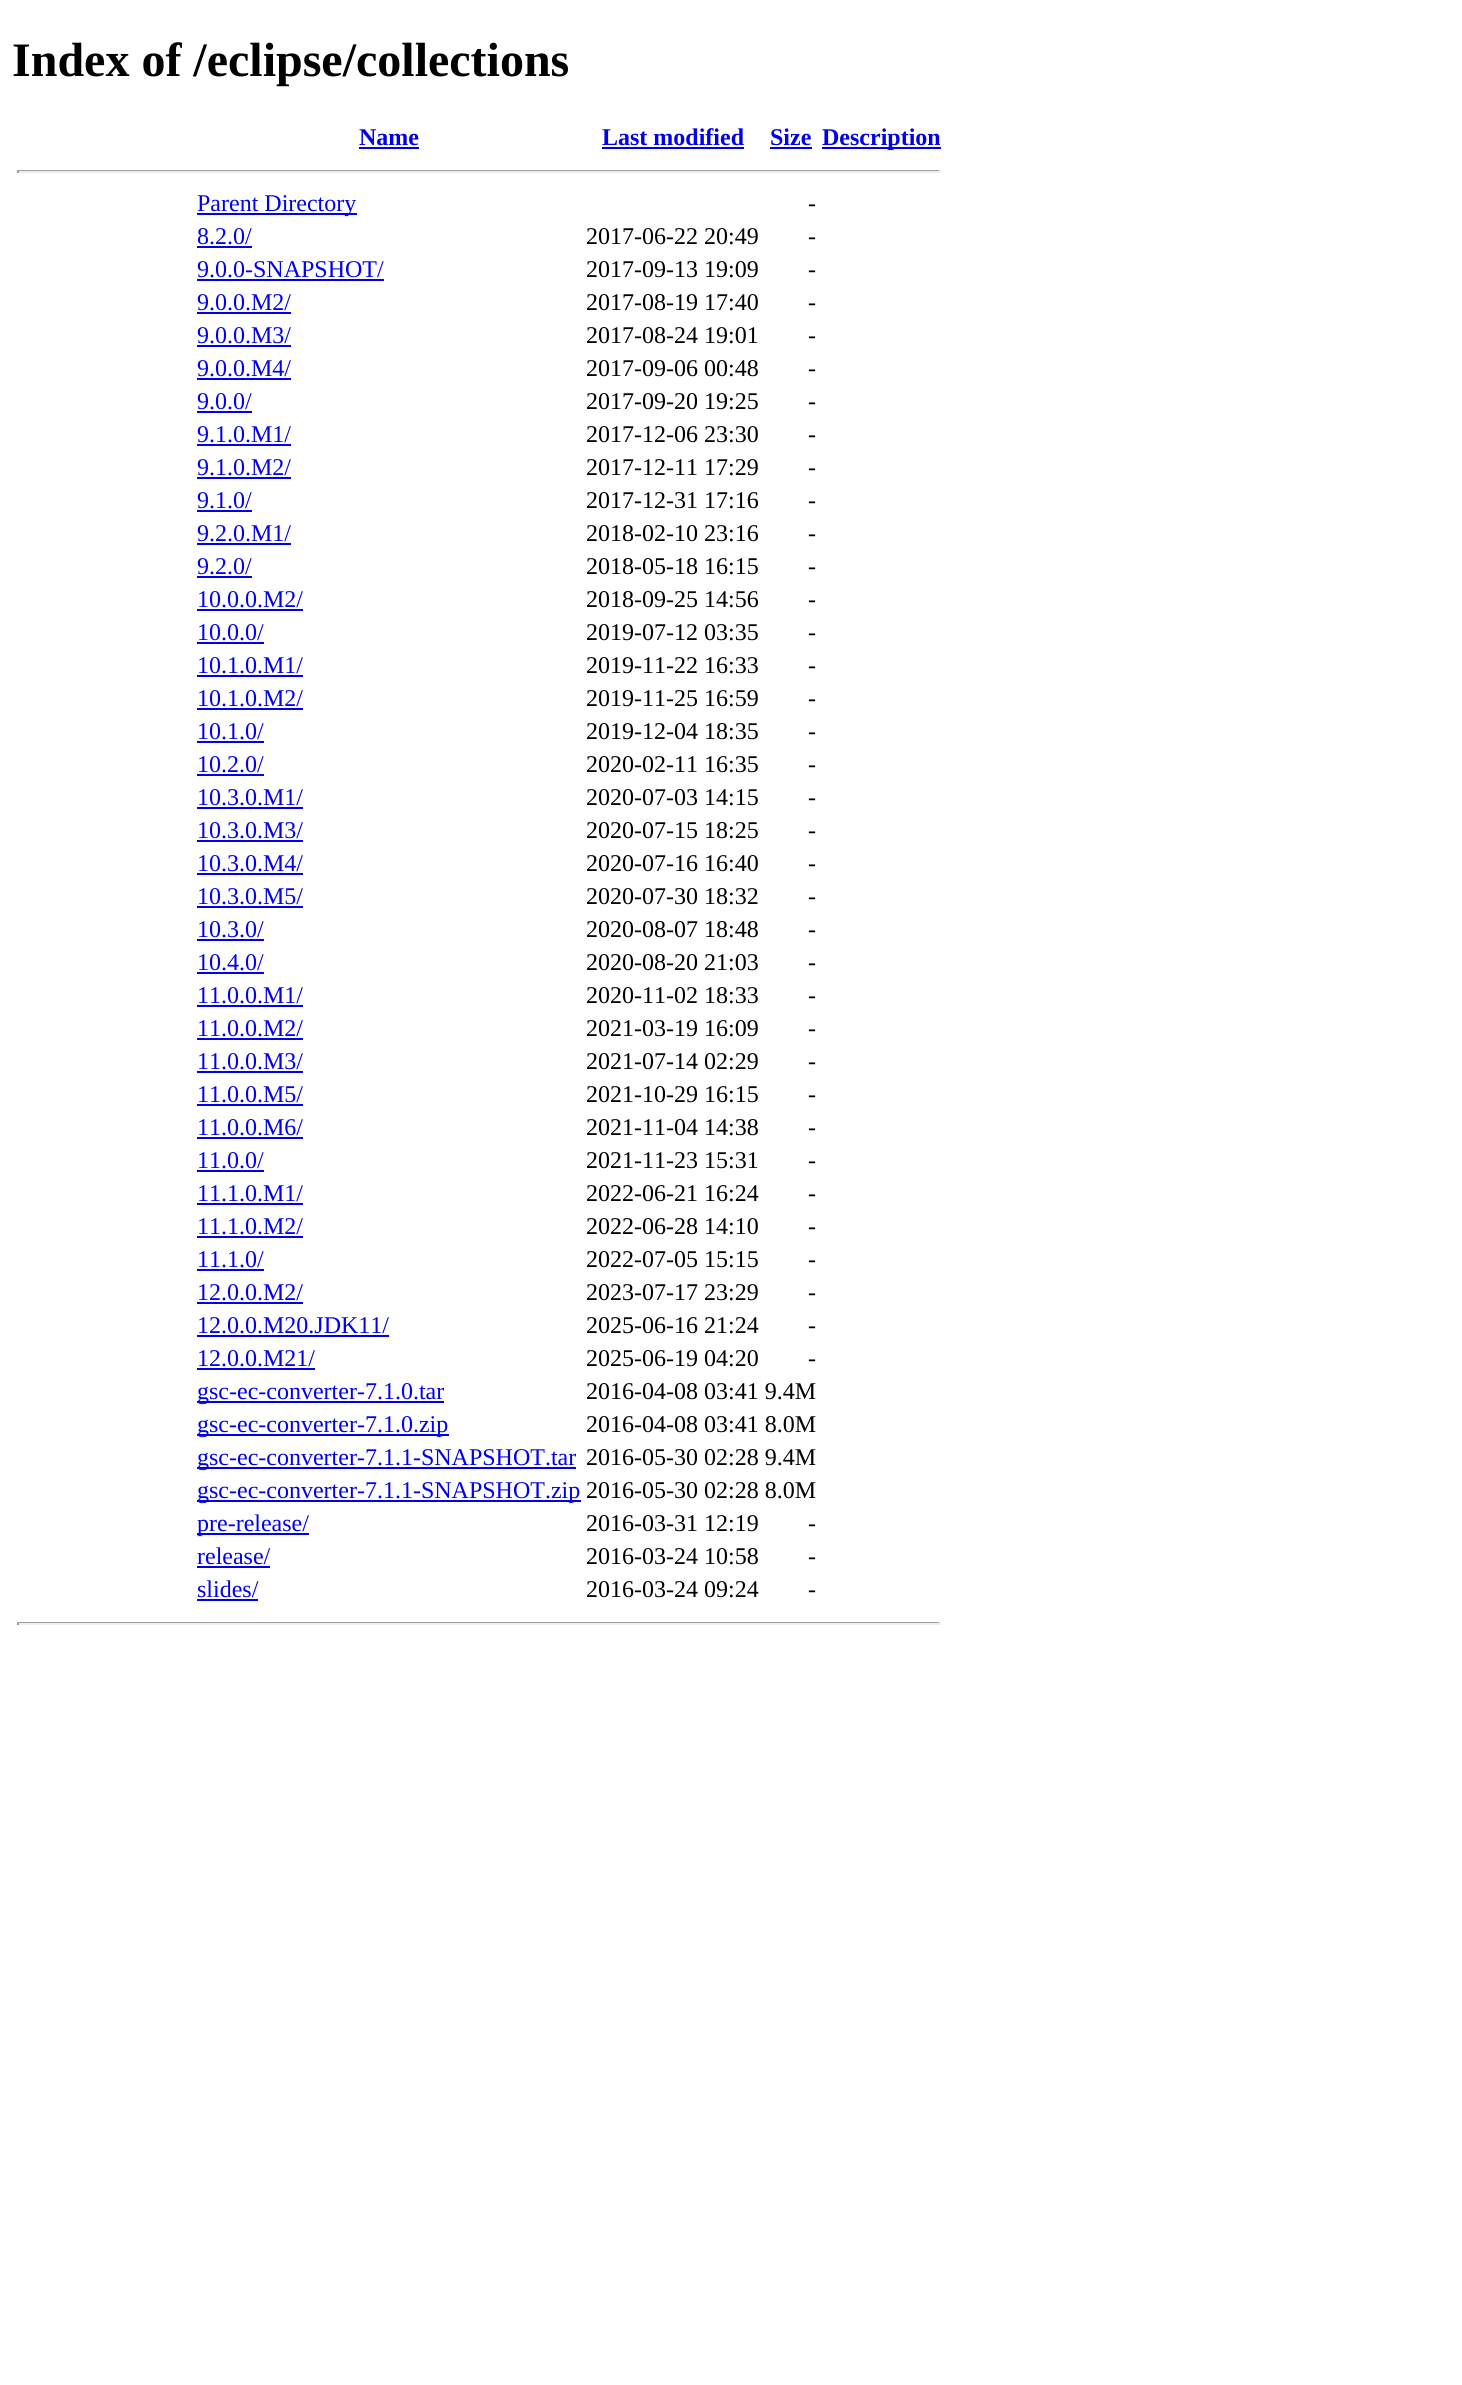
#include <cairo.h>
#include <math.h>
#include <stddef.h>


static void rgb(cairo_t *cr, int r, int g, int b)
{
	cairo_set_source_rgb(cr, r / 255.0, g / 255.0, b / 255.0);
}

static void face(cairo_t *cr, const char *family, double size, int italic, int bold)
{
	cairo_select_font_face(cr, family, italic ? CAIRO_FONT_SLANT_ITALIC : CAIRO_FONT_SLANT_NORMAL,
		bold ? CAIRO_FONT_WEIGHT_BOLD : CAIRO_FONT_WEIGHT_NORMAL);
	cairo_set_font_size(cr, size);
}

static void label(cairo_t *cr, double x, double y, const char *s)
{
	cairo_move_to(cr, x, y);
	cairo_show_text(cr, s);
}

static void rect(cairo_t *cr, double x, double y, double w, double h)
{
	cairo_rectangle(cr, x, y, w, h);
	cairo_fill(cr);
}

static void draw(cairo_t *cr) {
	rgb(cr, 255, 255, 255);
	cairo_paint(cr);
	face(cr, "Liberation Serif", 48, 0, 1);
	rgb(cr, 0, 0, 0);
	label(cr, 12, 76, "Index of /eclipse/collections");
	face(cr, "Liberation Serif", 24, 0, 1);
	rgb(cr, 0, 0, 238);
	label(cr, 359, 145, "Name");
	rect(cr, 359, 147, 60, 2);
	label(cr, 602, 145, "Last modified");
	rect(cr, 602, 147, 142, 2);
	label(cr, 770, 145, "Size");
	rect(cr, 770, 147, 42, 2);
	rect(cr, 822, 147, 119, 2);
	label(cr, 822, 145, "Description");
	rgb(cr, 159, 159, 159);
	rect(cr, 17, 170, 924, 1);
	rgb(cr, 238, 238, 238);
	rect(cr, 939, 170, 2, 3);
	rect(cr, 17, 171, 924, 2);
	rgb(cr, 159, 159, 159);
	rect(cr, 17, 170, 2, 3);
	rgb(cr, 0, 0, 238);
	rect(cr, 197, 213, 160, 2);
	face(cr, "Liberation Serif", 24, 0, 0);
	label(cr, 197, 211, "Parent Directory");
	rgb(cr, 0, 0, 0);
	label(cr, 808, 211, "-");
	rgb(cr, 0, 0, 238);
	label(cr, 197, 244, "8.2.0/");
	rect(cr, 197, 246, 55, 2);
	rgb(cr, 0, 0, 0);
	label(cr, 586, 244, "2017-06-22 20:49");
	label(cr, 808, 244, "-");
	rgb(cr, 0, 0, 238);
	label(cr, 197, 277, "9.0.0-SNAPSHOT/");
	rect(cr, 197, 279, 187, 2);
	rgb(cr, 0, 0, 0);
	label(cr, 586, 277, "2017-09-13 19:09");
	label(cr, 808, 277, "-");
	rgb(cr, 0, 0, 238);
	label(cr, 197, 310, "9.0.0.M2/");
	rect(cr, 197, 312, 94, 2);
	rgb(cr, 0, 0, 0);
	label(cr, 586, 310, "2017-08-19 17:40");
	label(cr, 808, 310, "-");
	rgb(cr, 0, 0, 238);
	label(cr, 197, 343, "9.0.0.M3/");
	rect(cr, 197, 345, 94, 2);
	rgb(cr, 0, 0, 0);
	label(cr, 586, 343, "2017-08-24 19:01");
	label(cr, 808, 343, "-");
	rgb(cr, 0, 0, 238);
	label(cr, 197, 376, "9.0.0.M4/");
	rect(cr, 197, 378, 94, 2);
	rgb(cr, 0, 0, 0);
	label(cr, 586, 376, "2017-09-06 00:48");
	label(cr, 808, 376, "-");
	rgb(cr, 0, 0, 238);
	label(cr, 197, 409, "9.0.0/");
	rect(cr, 197, 411, 55, 2);
	rgb(cr, 0, 0, 0);
	label(cr, 586, 409, "2017-09-20 19:25");
	label(cr, 808, 409, "-");
	rgb(cr, 0, 0, 238);
	label(cr, 197, 442, "9.1.0.M1/");
	rect(cr, 197, 444, 94, 2);
	rgb(cr, 0, 0, 0);
	label(cr, 586, 442, "2017-12-06 23:30");
	label(cr, 808, 442, "-");
	rgb(cr, 0, 0, 238);
	label(cr, 197, 475, "9.1.0.M2/");
	rect(cr, 197, 477, 94, 2);
	rgb(cr, 0, 0, 0);
	label(cr, 586, 475, "2017-12-11 17:29");
	label(cr, 808, 475, "-");
	rgb(cr, 0, 0, 238);
	label(cr, 197, 508, "9.1.0/");
	rect(cr, 197, 510, 55, 2);
	rgb(cr, 0, 0, 0);
	label(cr, 586, 508, "2017-12-31 17:16");
	label(cr, 808, 508, "-");
	rgb(cr, 0, 0, 238);
	label(cr, 197, 541, "9.2.0.M1/");
	rect(cr, 197, 543, 94, 2);
	rgb(cr, 0, 0, 0);
	label(cr, 586, 541, "2018-02-10 23:16");
	label(cr, 808, 541, "-");
	rgb(cr, 0, 0, 238);
	label(cr, 197, 574, "9.2.0/");
	rect(cr, 197, 576, 55, 2);
	rgb(cr, 0, 0, 0);
	label(cr, 586, 574, "2018-05-18 16:15");
	label(cr, 808, 574, "-");
	rgb(cr, 0, 0, 238);
	label(cr, 197, 607, "10.0.0.M2/");
	rect(cr, 197, 609, 106, 2);
	rgb(cr, 0, 0, 0);
	label(cr, 586, 607, "2018-09-25 14:56");
	label(cr, 808, 607, "-");
	rgb(cr, 0, 0, 238);
	label(cr, 197, 640, "10.0.0/");
	rect(cr, 197, 642, 67, 2);
	rgb(cr, 0, 0, 0);
	label(cr, 586, 640, "2019-07-12 03:35");
	label(cr, 808, 640, "-");
	rgb(cr, 0, 0, 238);
	label(cr, 197, 673, "10.1.0.M1/");
	rect(cr, 197, 675, 106, 2);
	rgb(cr, 0, 0, 0);
	label(cr, 586, 673, "2019-11-22 16:33");
	label(cr, 808, 673, "-");
	rgb(cr, 0, 0, 238);
	label(cr, 197, 706, "10.1.0.M2/");
	rect(cr, 197, 708, 106, 2);
	rgb(cr, 0, 0, 0);
	label(cr, 586, 706, "2019-11-25 16:59");
	label(cr, 808, 706, "-");
	rgb(cr, 0, 0, 238);
	label(cr, 197, 739, "10.1.0/");
	rect(cr, 197, 741, 67, 2);
	rgb(cr, 0, 0, 0);
	label(cr, 586, 739, "2019-12-04 18:35");
	label(cr, 808, 739, "-");
	rgb(cr, 0, 0, 238);
	label(cr, 197, 772, "10.2.0/");
	rect(cr, 197, 774, 67, 2);
	rgb(cr, 0, 0, 0);
	label(cr, 586, 772, "2020-02-11 16:35");
	label(cr, 808, 772, "-");
	rgb(cr, 0, 0, 238);
	label(cr, 197, 805, "10.3.0.M1/");
	rect(cr, 197, 807, 106, 2);
	rgb(cr, 0, 0, 0);
	label(cr, 586, 805, "2020-07-03 14:15");
	label(cr, 808, 805, "-");
	rgb(cr, 0, 0, 238);
	label(cr, 197, 838, "10.3.0.M3/");
	rect(cr, 197, 840, 106, 2);
	rgb(cr, 0, 0, 0);
	label(cr, 586, 838, "2020-07-15 18:25");
	label(cr, 808, 838, "-");
	rgb(cr, 0, 0, 238);
	label(cr, 197, 871, "10.3.0.M4/");
	rect(cr, 197, 873, 106, 2);
	rgb(cr, 0, 0, 0);
	label(cr, 586, 871, "2020-07-16 16:40");
	label(cr, 808, 871, "-");
	rgb(cr, 0, 0, 238);
	label(cr, 197, 904, "10.3.0.M5/");
	rect(cr, 197, 906, 106, 2);
	rgb(cr, 0, 0, 0);
	label(cr, 586, 904, "2020-07-30 18:32");
	label(cr, 808, 904, "-");
	rgb(cr, 0, 0, 238);
	label(cr, 197, 937, "10.3.0/");
	rect(cr, 197, 939, 67, 2);
	rgb(cr, 0, 0, 0);
	label(cr, 586, 937, "2020-08-07 18:48");
	label(cr, 808, 937, "-");
	rgb(cr, 0, 0, 238);
	label(cr, 197, 970, "10.4.0/");
	rect(cr, 197, 972, 67, 2);
	rgb(cr, 0, 0, 0);
	label(cr, 586, 970, "2020-08-20 21:03");
	label(cr, 808, 970, "-");
	rgb(cr, 0, 0, 238);
	label(cr, 197, 1003, "11.0.0.M1/");
	rect(cr, 197, 1005, 106, 2);
	rgb(cr, 0, 0, 0);
	label(cr, 586, 1003, "2020-11-02 18:33");
	label(cr, 808, 1003, "-");
	rgb(cr, 0, 0, 238);
	label(cr, 197, 1036, "11.0.0.M2/");
	rect(cr, 197, 1038, 106, 2);
	rgb(cr, 0, 0, 0);
	label(cr, 586, 1036, "2021-03-19 16:09");
	label(cr, 808, 1036, "-");
	rgb(cr, 0, 0, 238);
	label(cr, 197, 1069, "11.0.0.M3/");
	rect(cr, 197, 1071, 106, 2);
	rgb(cr, 0, 0, 0);
	label(cr, 586, 1069, "2021-07-14 02:29");
	label(cr, 808, 1069, "-");
	rgb(cr, 0, 0, 238);
	label(cr, 197, 1102, "11.0.0.M5/");
	rect(cr, 197, 1104, 106, 2);
	rgb(cr, 0, 0, 0);
	label(cr, 586, 1102, "2021-10-29 16:15");
	label(cr, 808, 1102, "-");
	rgb(cr, 0, 0, 238);
	label(cr, 197, 1135, "11.0.0.M6/");
	rect(cr, 197, 1137, 106, 2);
	rgb(cr, 0, 0, 0);
	label(cr, 586, 1135, "2021-11-04 14:38");
	label(cr, 808, 1135, "-");
	rgb(cr, 0, 0, 238);
	label(cr, 197, 1168, "11.0.0/");
	rect(cr, 197, 1170, 67, 2);
	rgb(cr, 0, 0, 0);
	label(cr, 586, 1168, "2021-11-23 15:31");
	label(cr, 808, 1168, "-");
	rgb(cr, 0, 0, 238);
	label(cr, 197, 1201, "11.1.0.M1/");
	rect(cr, 197, 1203, 106, 2);
	rgb(cr, 0, 0, 0);
	label(cr, 586, 1201, "2022-06-21 16:24");
	label(cr, 808, 1201, "-");
	rgb(cr, 0, 0, 238);
	label(cr, 197, 1234, "11.1.0.M2/");
	rect(cr, 197, 1236, 106, 2);
	rgb(cr, 0, 0, 0);
	label(cr, 586, 1234, "2022-06-28 14:10");
	label(cr, 808, 1234, "-");
	rgb(cr, 0, 0, 238);
	label(cr, 197, 1267, "11.1.0/");
	rect(cr, 197, 1269, 67, 2);
	rgb(cr, 0, 0, 0);
	label(cr, 586, 1267, "2022-07-05 15:15");
	label(cr, 808, 1267, "-");
	rgb(cr, 0, 0, 238);
	label(cr, 197, 1300, "12.0.0.M2/");
	rect(cr, 197, 1302, 106, 2);
	rgb(cr, 0, 0, 0);
	label(cr, 586, 1300, "2023-07-17 23:29");
	label(cr, 808, 1300, "-");
	rgb(cr, 0, 0, 238);
	label(cr, 197, 1333, "12.0.0.M20.JDK11/");
	rect(cr, 197, 1335, 192, 2);
	rgb(cr, 0, 0, 0);
	label(cr, 586, 1333, "2025-06-16 21:24");
	label(cr, 808, 1333, "-");
	rgb(cr, 0, 0, 238);
	label(cr, 197, 1366, "12.0.0.M21/");
	rect(cr, 197, 1368, 118, 2);
	rgb(cr, 0, 0, 0);
	label(cr, 586, 1366, "2025-06-19 04:20");
	label(cr, 808, 1366, "-");
	rgb(cr, 0, 0, 238);
	rect(cr, 197, 1401, 247, 2);
	label(cr, 197, 1399, "gsc-ec-converter-7.1.0.tar");
	rgb(cr, 0, 0, 0);
	label(cr, 586, 1399, "2016-04-08 03:41 9.4M");
	rgb(cr, 0, 0, 238);
	rect(cr, 197, 1434, 252, 2);
	label(cr, 197, 1432, "gsc-ec-converter-7.1.0.zip");
	rgb(cr, 0, 0, 0);
	label(cr, 586, 1432, "2016-04-08 03:41 8.0M");
	rgb(cr, 0, 0, 238);
	rect(cr, 197, 1467, 379, 2);
	label(cr, 197, 1465, "gsc-ec-converter-7.1.1-SNAPSHOT.tar");
	rgb(cr, 0, 0, 0);
	label(cr, 586, 1465, "2016-05-30 02:28 9.4M");
	rgb(cr, 0, 0, 238);
	rect(cr, 197, 1500, 384, 2);
	label(cr, 197, 1498, "gsc-ec-converter-7.1.1-SNAPSHOT.zip");
	rgb(cr, 0, 0, 0);
	label(cr, 586, 1498, "2016-05-30 02:28 8.0M");
	rgb(cr, 0, 0, 238);
	rect(cr, 197, 1533, 112, 2);
	label(cr, 197, 1531, "pre-release/");
	rgb(cr, 0, 0, 0);
	label(cr, 586, 1531, "2016-03-31 12:19");
	label(cr, 808, 1531, "-");
	rgb(cr, 0, 0, 238);
	label(cr, 197, 1564, "release/");
	rect(cr, 197, 1566, 73, 2);
	rgb(cr, 0, 0, 0);
	label(cr, 586, 1564, "2016-03-24 10:58");
	label(cr, 808, 1564, "-");
	rgb(cr, 0, 0, 238);
	label(cr, 197, 1597, "slides/");
	rect(cr, 197, 1599, 61, 2);
	rgb(cr, 0, 0, 0);
	label(cr, 586, 1597, "2016-03-24 09:24");
	label(cr, 808, 1597, "-");
	rgb(cr, 159, 159, 159);
	rect(cr, 17, 1622, 924, 1);
	rgb(cr, 238, 238, 238);
	rect(cr, 939, 1622, 2, 3);
	rect(cr, 17, 1623, 924, 2);
	rgb(cr, 159, 159, 159);
	rect(cr, 17, 1622, 2, 3);
}

int main(void) {
	cairo_surface_t *surface = cairo_image_surface_create(CAIRO_FORMAT_RGB24, 1462, 2385);
	cairo_t *cr = cairo_create(surface);
	cairo_font_options_t *options = cairo_font_options_create();
	cairo_font_options_set_hint_metrics(options, CAIRO_HINT_METRICS_OFF);
	cairo_font_options_set_hint_style(options, CAIRO_HINT_STYLE_NONE);
	cairo_set_font_options(cr, options);
	cairo_set_miter_limit(cr, 4);
	draw(cr);
	cairo_surface_write_to_png(surface, "render.png");
	cairo_font_options_destroy(options);
	cairo_destroy(cr);
	cairo_surface_destroy(surface);
	return 0;
}
